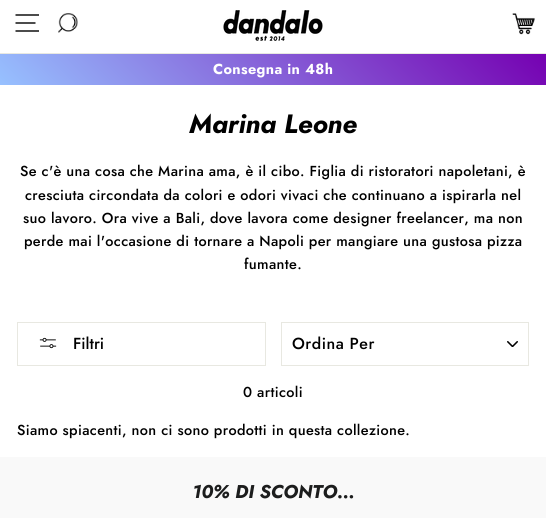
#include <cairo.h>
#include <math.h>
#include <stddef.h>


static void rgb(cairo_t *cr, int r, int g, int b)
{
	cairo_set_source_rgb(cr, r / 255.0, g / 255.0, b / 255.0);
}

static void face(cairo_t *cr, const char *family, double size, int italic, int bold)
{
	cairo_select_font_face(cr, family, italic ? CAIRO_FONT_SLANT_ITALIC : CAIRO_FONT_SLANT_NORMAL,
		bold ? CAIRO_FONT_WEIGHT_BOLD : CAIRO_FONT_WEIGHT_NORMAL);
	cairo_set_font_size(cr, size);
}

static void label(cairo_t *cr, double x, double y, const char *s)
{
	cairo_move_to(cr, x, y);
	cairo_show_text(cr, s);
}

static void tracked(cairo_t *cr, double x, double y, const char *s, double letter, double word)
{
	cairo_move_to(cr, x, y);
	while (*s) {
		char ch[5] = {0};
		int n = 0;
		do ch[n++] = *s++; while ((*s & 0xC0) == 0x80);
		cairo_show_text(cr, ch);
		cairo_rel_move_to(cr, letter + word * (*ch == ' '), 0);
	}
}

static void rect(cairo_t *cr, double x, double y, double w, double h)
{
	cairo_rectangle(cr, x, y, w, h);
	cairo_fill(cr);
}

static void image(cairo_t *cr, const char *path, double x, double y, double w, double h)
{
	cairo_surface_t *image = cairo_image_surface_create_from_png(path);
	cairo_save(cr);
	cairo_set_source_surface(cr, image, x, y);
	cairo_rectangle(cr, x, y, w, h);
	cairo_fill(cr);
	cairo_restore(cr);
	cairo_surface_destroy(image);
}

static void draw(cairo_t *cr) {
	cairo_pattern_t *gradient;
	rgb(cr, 255, 255, 255);
	cairo_paint(cr);
	rgb(cr, 232, 232, 225);
	rect(cr, 0, 53, 546, 1);
	cairo_new_path(cr);
	cairo_move_to(cr, 15.5, 15);
	cairo_line_to(cr, 39, 15);
	cairo_move_to(cr, 15.5, 23);
	cairo_line_to(cr, 35.5, 23);
	cairo_move_to(cr, 15.5, 31);
	cairo_line_to(cr, 39, 31);
	rgb(cr, 0, 0, 0);
	cairo_set_line_width(cr, 1.4);
	cairo_stroke(cr);
	image(cr, "image0.png", 58, 13, 20, 20);
	image(cr, "image1.png", 223, 10, 100, 31);
	image(cr, "image2.png", 512, 13, 23, 22);
	gradient = cairo_pattern_create_linear(129, 214, 417, -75);
	cairo_pattern_add_color_stop_rgba(gradient, 0, 0.592, 0.757, 1, 1);
	cairo_pattern_add_color_stop_rgba(gradient, 1, 0.459, 0, 0.694, 1);
	cairo_set_source(cr, gradient);
	cairo_pattern_destroy(gradient);
	rect(cr, 0, 54, 546, 31);
	face(cr, "Jost", 14.45, 0, 1);
	rgb(cr, 255, 255, 255);
	tracked(cr, 213, 74, "Consegna in 48h", 0.35, 0);
	face(cr, "Jost", 26.5, 1, 1);
	rgb(cr, 0, 0, 0);
	label(cr, 189, 133, "Marina Leone");
	face(cr, "Jost Medium", 14.45, 0, 0);
	tracked(cr, 20, 176, "Se c'è una cosa che Marina ama, è il cibo. Figlia di ristoratori napoletani, è", 0.35, 0);
	tracked(cr, 25, 200, "cresciuta circondata da colori e odori vivaci che continuano a ispirarla nel", 0.35, 0);
	tracked(cr, 23, 223, "suo lavoro. Ora vive a Bali, dove lavora come designer freelancer, ma non", 0.35, 0);
	tracked(cr, 24, 246, "perde mai l'occasione di tornare a Napoli per mangiare una gustosa pizza", 0.35, 0);
	tracked(cr, 244, 269, "fumante.", 0.35, 0);
	cairo_rectangle(cr, 17.5, 322.5, 248, 43);
	rgb(cr, 232, 232, 225);
	cairo_set_line_width(cr, 1);
	cairo_stroke(cr);
	image(cr, "image3.png", 39, 337, 18, 12);
	face(cr, "Jost Medium", 16, 0, 0);
	rgb(cr, 0, 0, 0);
	label(cr, 73, 349, "Filtri");
	image(cr, "image4.png", 507, 341, 11, 6);
	cairo_rectangle(cr, 281.5, 322.5, 247, 43);
	rgb(cr, 232, 232, 225);
	cairo_stroke(cr);
	rgb(cr, 0, 0, 0);
	tracked(cr, 292, 349, "Ordina Per", 0.5, 0);
	face(cr, "Jost Medium", 14.45, 0, 0);
	tracked(cr, 243, 397, "0 articoli", 0.35, 0);
	tracked(cr, 17, 435, "Siamo spiacenti, non ci sono prodotti in questa collezione.", 0.35, 0);
	rgb(cr, 249, 249, 249);
	rect(cr, 0, 457, 546, 61);
	face(cr, "Jost", 18.5, 1, 1);
	rgb(cr, 28, 29, 29);
	label(cr, 192, 498, "10% DI SCONTO...");
}

int main(void) {
	cairo_surface_t *surface = cairo_image_surface_create(CAIRO_FORMAT_RGB24, 546, 518);
	cairo_t *cr = cairo_create(surface);
	cairo_font_options_t *options = cairo_font_options_create();
	cairo_font_options_set_hint_metrics(options, CAIRO_HINT_METRICS_OFF);
	cairo_font_options_set_hint_style(options, CAIRO_HINT_STYLE_NONE);
	cairo_set_font_options(cr, options);
	cairo_set_miter_limit(cr, 4);
	draw(cr);
	cairo_surface_write_to_png(surface, "render.png");
	cairo_font_options_destroy(options);
	cairo_destroy(cr);
	cairo_surface_destroy(surface);
	return 0;
}
